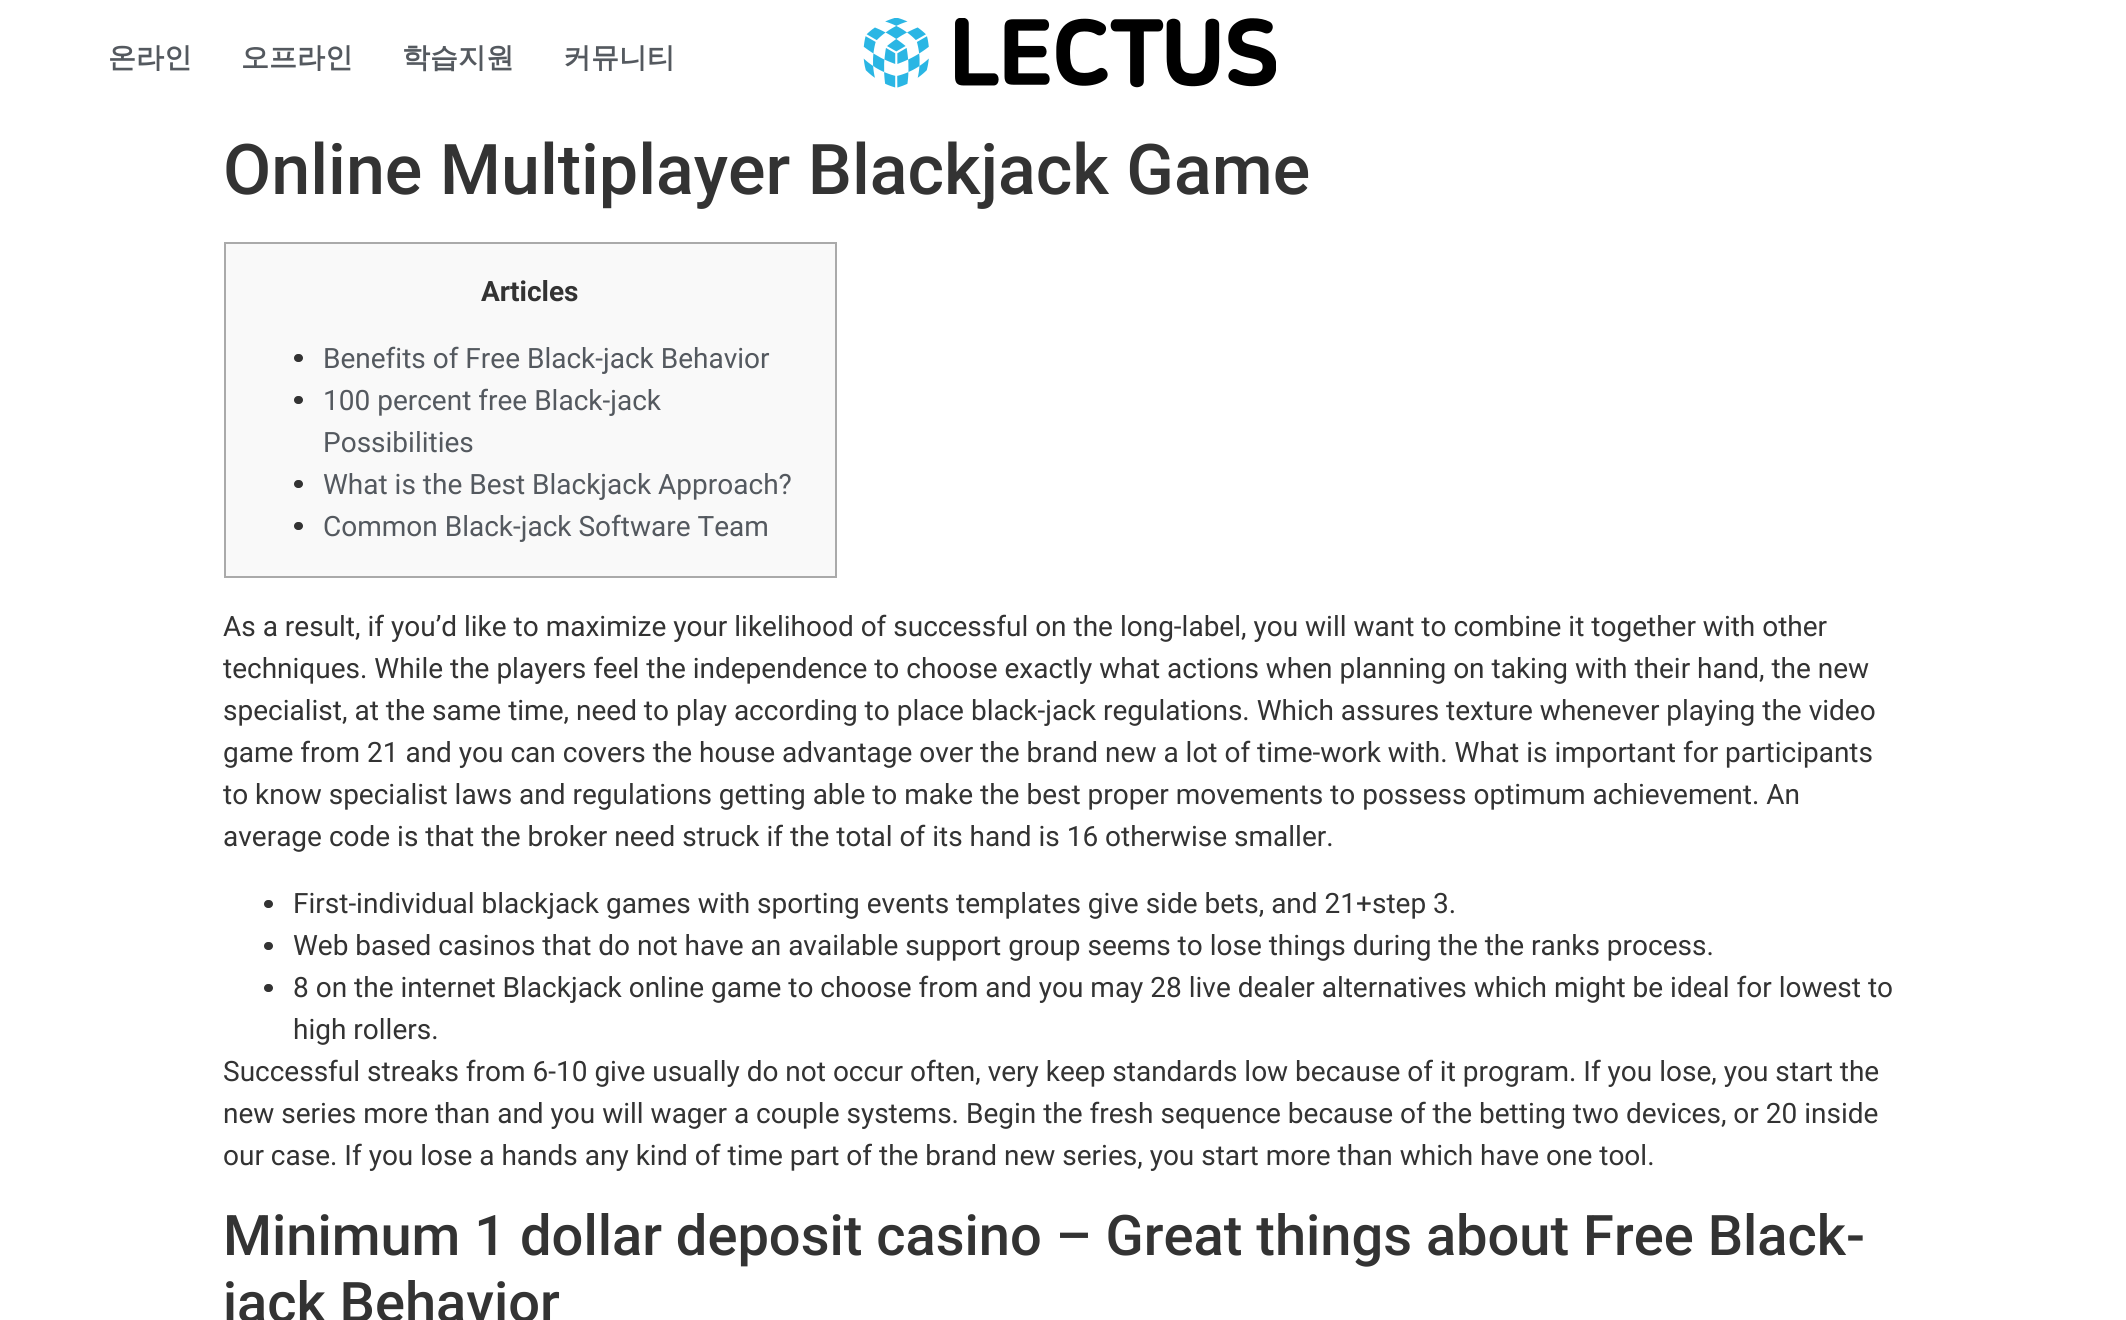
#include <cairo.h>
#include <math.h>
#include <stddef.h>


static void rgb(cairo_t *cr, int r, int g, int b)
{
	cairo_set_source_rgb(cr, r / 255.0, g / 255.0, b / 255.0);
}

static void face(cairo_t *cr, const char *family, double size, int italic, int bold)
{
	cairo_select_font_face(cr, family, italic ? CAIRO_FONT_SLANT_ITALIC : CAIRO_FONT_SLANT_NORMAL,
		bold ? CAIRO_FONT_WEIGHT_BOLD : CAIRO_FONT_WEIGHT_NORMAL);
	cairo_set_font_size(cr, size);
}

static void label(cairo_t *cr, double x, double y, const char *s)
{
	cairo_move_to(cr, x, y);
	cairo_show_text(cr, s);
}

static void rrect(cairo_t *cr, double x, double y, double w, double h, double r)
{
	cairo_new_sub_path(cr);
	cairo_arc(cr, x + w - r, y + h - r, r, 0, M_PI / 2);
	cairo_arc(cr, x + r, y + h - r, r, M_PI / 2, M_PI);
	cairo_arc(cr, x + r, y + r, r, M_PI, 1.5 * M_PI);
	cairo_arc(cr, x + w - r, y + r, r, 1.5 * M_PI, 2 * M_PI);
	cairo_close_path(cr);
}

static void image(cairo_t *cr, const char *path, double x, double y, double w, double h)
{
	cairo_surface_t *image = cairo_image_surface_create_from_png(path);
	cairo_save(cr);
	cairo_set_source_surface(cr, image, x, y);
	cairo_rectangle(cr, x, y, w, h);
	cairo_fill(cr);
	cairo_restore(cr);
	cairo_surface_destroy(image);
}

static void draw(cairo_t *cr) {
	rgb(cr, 255, 255, 255);
	cairo_paint(cr);
	face(cr, "WenQuanYi Zen Hei", 28, 0, 1);
	rgb(cr, 84, 89, 95);
	label(cr, 108, 67, "온라인");
	label(cr, 241, 67, "오프라인");
	label(cr, 402, 67, "학습지원");
	label(cr, 563, 67, "커뮤니티");
	image(cr, "image0.png", 863, 18, 413, 70);
	face(cr, "Roboto Medium", 70, 0, 0);
	rgb(cr, 51, 51, 51);
	label(cr, 223, 194, "Online Multiplayer Blackjack Game");
	rgb(cr, 249, 249, 249);
	cairo_rectangle(cr, 225, 243, 611, 334);
	cairo_fill_preserve(cr);
	rgb(cr, 170, 170, 170);
	cairo_stroke(cr);
	face(cr, "Roboto", 28, 0, 1);
	rgb(cr, 51, 51, 51);
	label(cr, 481, 301, "Articles");
	rrect(cr, 294, 354, 9, 8, 4);
	cairo_fill(cr);
	face(cr, "Roboto", 28, 0, 0);
	rgb(cr, 84, 89, 95);
	label(cr, 323, 368, "Benefits of Free Black-jack Behavior");
	rgb(cr, 51, 51, 51);
	rrect(cr, 294, 396, 9, 8, 4);
	cairo_fill(cr);
	rgb(cr, 84, 89, 95);
	label(cr, 323, 410, "100 percent free Black-jack");
	label(cr, 323, 452, "Possibilities");
	rgb(cr, 51, 51, 51);
	rrect(cr, 294, 480, 9, 8, 4);
	cairo_fill(cr);
	rgb(cr, 84, 89, 95);
	label(cr, 323, 494, "What is the Best Blackjack Approach?");
	rgb(cr, 51, 51, 51);
	rrect(cr, 294, 522, 9, 8, 4);
	cairo_fill(cr);
	rgb(cr, 84, 89, 95);
	label(cr, 323, 536, "Common Black-jack Software Team");
	rgb(cr, 51, 51, 51);
	label(cr, 223, 636, "As a result, if you’d like to maximize your likelihood of successful on the long-label, you will want to combine it together with other");
	label(cr, 223, 678, "techniques. While the players feel the independence to choose exactly what actions when planning on taking with their hand, the new");
	label(cr, 223, 720, "specialist, at the same time, need to play according to place black-jack regulations. Which assures texture whenever playing the video");
	label(cr, 223, 762, "game from 21 and you can covers the house advantage over the brand new a lot of time-work with. What is important for participants");
	label(cr, 223, 804, "to know specialist laws and regulations getting able to make the best proper movements to possess optimum achievement. An");
	label(cr, 223, 846, "average code is that the broker need struck if the total of its hand is 16 otherwise smaller.");
	rrect(cr, 264, 900, 9, 8, 4);
	cairo_fill(cr);
	label(cr, 293, 913, "First-individual blackjack games with sporting events templates give side bets, and 21+step 3.");
	rrect(cr, 264, 942, 9, 8, 4);
	cairo_fill(cr);
	label(cr, 293, 955, "Web based casinos that do not have an available support group seems to lose things during the the ranks process.");
	rrect(cr, 264, 984, 9, 8, 4);
	cairo_fill(cr);
	label(cr, 293, 997, "8 on the internet Blackjack online game to choose from and you may 28 live dealer alternatives which might be ideal for lowest to");
	label(cr, 293, 1039, "high rollers.");
	label(cr, 223, 1081, "Successful streaks from 6-10 give usually do not occur often, very keep standards low because of it program. If you lose, you start the");
	label(cr, 223, 1123, "new series more than and you will wager a couple systems. Begin the fresh sequence because of the betting two devices, or 20 inside");
	label(cr, 223, 1165, "our case. If you lose a hands any kind of time part of the brand new series, you start more than which have one tool.");
	face(cr, "Roboto Medium", 56, 0, 0);
	label(cr, 223, 1255, "Minimum 1 dollar deposit casino – Great things about Free Black-");
	label(cr, 223, 1322, "jack Behavior");
}

int main(void) {
	cairo_surface_t *surface = cairo_image_surface_create(CAIRO_FORMAT_RGB24, 2126, 1320);
	cairo_t *cr = cairo_create(surface);
	cairo_font_options_t *options = cairo_font_options_create();
	cairo_font_options_set_hint_metrics(options, CAIRO_HINT_METRICS_OFF);
	cairo_font_options_set_hint_style(options, CAIRO_HINT_STYLE_NONE);
	cairo_set_font_options(cr, options);
	cairo_set_miter_limit(cr, 4);
	draw(cr);
	cairo_surface_write_to_png(surface, "render.png");
	cairo_font_options_destroy(options);
	cairo_destroy(cr);
	cairo_surface_destroy(surface);
	return 0;
}
